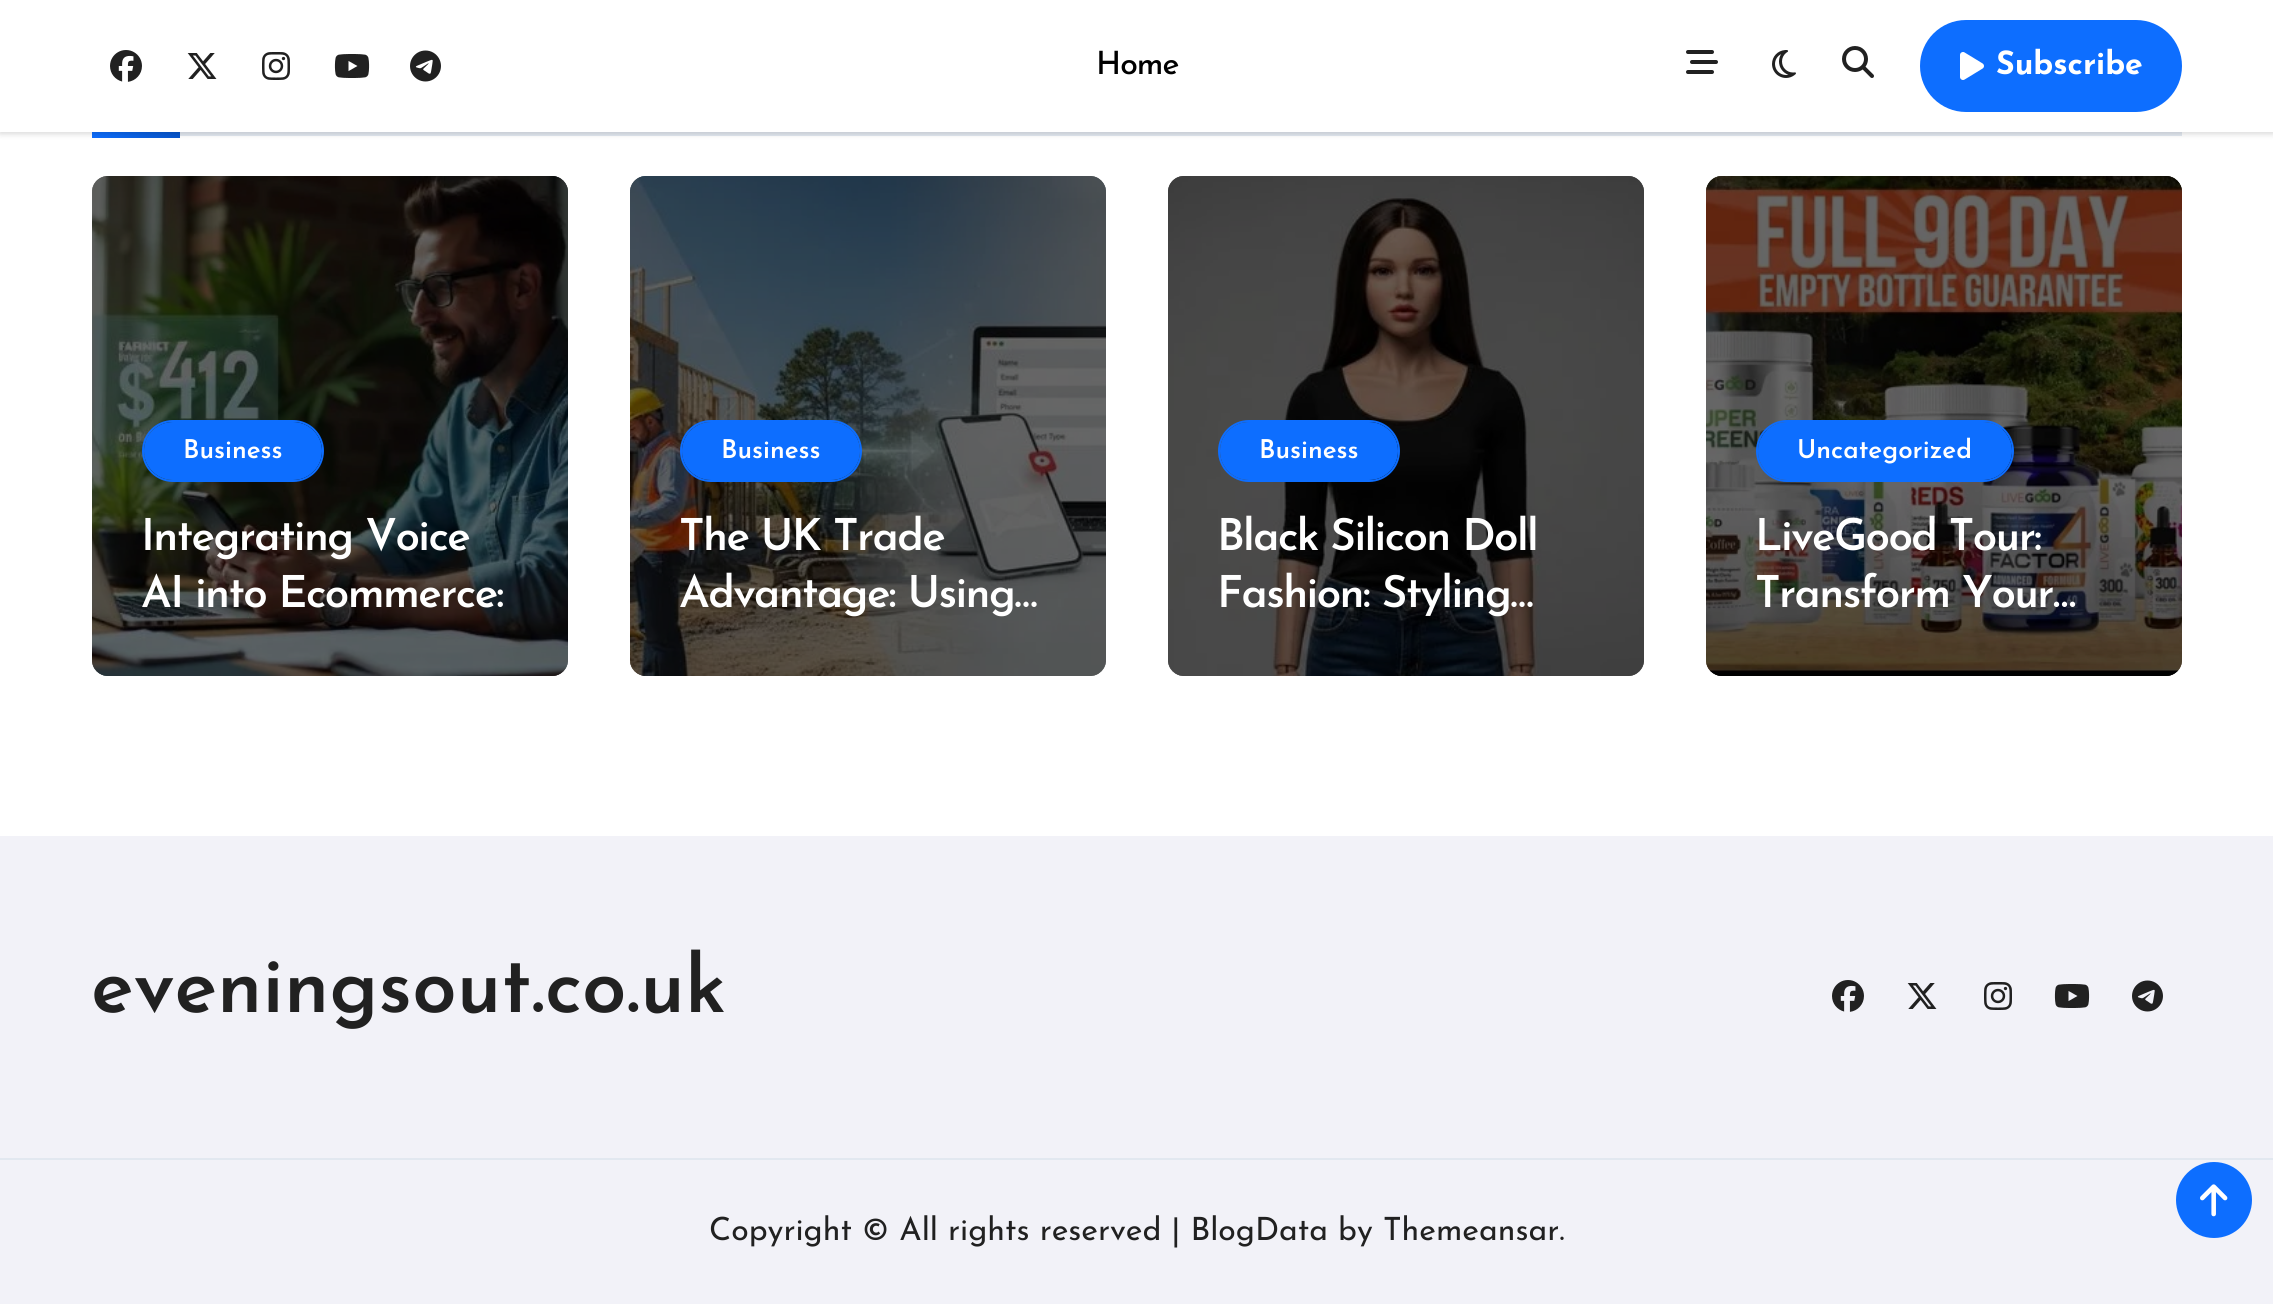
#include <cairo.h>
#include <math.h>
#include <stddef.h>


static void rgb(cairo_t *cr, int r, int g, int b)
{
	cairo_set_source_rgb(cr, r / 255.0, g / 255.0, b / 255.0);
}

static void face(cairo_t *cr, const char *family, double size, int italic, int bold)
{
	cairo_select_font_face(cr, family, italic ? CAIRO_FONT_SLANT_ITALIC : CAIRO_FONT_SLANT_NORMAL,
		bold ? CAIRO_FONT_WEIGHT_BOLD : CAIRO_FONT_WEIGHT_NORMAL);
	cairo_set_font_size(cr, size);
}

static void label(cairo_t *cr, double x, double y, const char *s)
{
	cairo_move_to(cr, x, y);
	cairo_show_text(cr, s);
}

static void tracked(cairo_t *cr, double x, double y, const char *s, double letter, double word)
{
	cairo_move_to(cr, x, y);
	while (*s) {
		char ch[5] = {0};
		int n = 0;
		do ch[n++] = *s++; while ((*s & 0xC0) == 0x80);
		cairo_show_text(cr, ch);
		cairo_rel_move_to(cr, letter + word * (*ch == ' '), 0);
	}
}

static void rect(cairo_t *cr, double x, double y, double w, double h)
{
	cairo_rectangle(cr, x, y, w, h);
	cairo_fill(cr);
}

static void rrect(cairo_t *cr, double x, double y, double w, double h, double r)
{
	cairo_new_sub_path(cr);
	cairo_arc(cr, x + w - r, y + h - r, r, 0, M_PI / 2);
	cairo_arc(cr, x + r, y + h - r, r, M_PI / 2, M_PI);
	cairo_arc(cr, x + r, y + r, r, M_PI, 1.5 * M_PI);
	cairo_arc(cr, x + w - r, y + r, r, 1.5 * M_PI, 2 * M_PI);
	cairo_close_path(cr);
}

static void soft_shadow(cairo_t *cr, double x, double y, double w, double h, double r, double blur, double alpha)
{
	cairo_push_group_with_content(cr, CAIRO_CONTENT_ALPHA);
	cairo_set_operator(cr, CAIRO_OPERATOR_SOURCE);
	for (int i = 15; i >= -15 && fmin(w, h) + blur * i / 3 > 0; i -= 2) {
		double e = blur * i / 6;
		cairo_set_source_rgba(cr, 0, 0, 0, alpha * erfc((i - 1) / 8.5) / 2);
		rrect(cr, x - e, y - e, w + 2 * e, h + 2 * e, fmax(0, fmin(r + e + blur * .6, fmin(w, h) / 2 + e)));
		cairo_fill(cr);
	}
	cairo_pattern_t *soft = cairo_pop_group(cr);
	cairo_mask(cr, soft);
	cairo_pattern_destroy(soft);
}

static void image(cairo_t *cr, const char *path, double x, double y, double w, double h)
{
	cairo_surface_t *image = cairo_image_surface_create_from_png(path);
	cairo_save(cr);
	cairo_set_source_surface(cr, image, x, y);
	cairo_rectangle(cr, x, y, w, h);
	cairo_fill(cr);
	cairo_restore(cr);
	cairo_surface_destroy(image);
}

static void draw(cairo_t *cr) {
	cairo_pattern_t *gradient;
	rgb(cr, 255, 255, 255);
	cairo_paint(cr);
	rgb(cr, 226, 232, 240);
	rect(cr, 180, 132, 2002, 4);
	gradient = cairo_pattern_create_linear(92, 134, 180, 134);
	cairo_pattern_add_color_stop_rgba(gradient, 0, 0.051, 0.431, 1, 1);
	cairo_pattern_add_color_stop_rgba(gradient, 1, 0.024, 0.333, 0.8, 1);
	cairo_set_source(cr, gradient);
	cairo_pattern_destroy(gradient);
	rect(cr, 92, 132, 88, 6);
	rgb(cr, 0, 0, 0);
	soft_shadow(cr, 0, 2, 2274, 132, 0, 3, 0.15);
	rgb(cr, 255, 255, 255);
	rect(cr, 0, 0, 2273, 132);
	image(cr, "image0.png", 110, 50, 32, 32);
	image(cr, "image1.png", 187, 53, 30, 26);
	image(cr, "image2.png", 262, 52, 28, 28);
	image(cr, "image3.png", 334, 54, 36, 24);
	image(cr, "image4.png", 410, 50, 31, 32);
	face(cr, "Josefin Sans Medium", 32, 0, 0);
	rgb(cr, 0, 0, 0);
	tracked(cr, 1096, 74, "Home", -1, 0);
	image(cr, "image5.png", 1686, 50, 32, 24);
	image(cr, "image6.png", 1772, 50, 24, 28);
	image(cr, "image7.png", 1842, 46, 32, 32);
	rgb(cr, 13, 110, 255);
	rrect(cr, 1920, 20, 262, 92, 46);
	cairo_fill(cr);
	image(cr, "image8.png", 1960, 52, 24, 28);
	face(cr, "Josefin Sans", 32, 0, 1);
	rgb(cr, 255, 255, 255);
	label(cr, 1996, 74, "Subscribe");
	rgb(cr, 51, 51, 51);
	rrect(cr, 92, 176, 476, 500, 16);
	cairo_fill(cr);
	image(cr, "image9.png", 92, 176, 476, 500);
	cairo_set_source_rgba(cr, 0, 0, 0, 0.6);
	rrect(cr, 92, 176, 476, 500, 16);
	cairo_fill(cr);
	rrect(cr, 143, 421, 180, 60, 30);
	rgb(cr, 13, 110, 255);
	cairo_stroke(cr);
	rrect(cr, 144, 422, 178, 58, 29);
	cairo_fill(cr);
	face(cr, "Josefin Sans SemiBold", 26, 0, 0);
	rgb(cr, 255, 255, 255);
	label(cr, 183, 458, "Business");
	face(cr, "Josefin Sans SemiBold", 44, 0, 0);
	tracked(cr, 141, 550, "Integrating Voice", -1.6, 0);
	tracked(cr, 141, 607, "AI into Ecommerce:", -1.6, 0);
	rgb(cr, 51, 51, 51);
	rrect(cr, 630, 176, 476, 500, 16);
	cairo_fill(cr);
	image(cr, "image10.png", 630, 176, 476, 500);
	cairo_set_source_rgba(cr, 0, 0, 0, 0.6);
	rrect(cr, 630, 176, 476, 500, 16);
	cairo_fill(cr);
	rrect(cr, 681, 421, 180, 60, 30);
	rgb(cr, 13, 110, 255);
	cairo_stroke(cr);
	rrect(cr, 682, 422, 178, 58, 29);
	cairo_fill(cr);
	face(cr, "Josefin Sans SemiBold", 26, 0, 0);
	rgb(cr, 255, 255, 255);
	label(cr, 721, 458, "Business");
	face(cr, "Josefin Sans SemiBold", 44, 0, 0);
	tracked(cr, 679, 550, "The UK Trade", -1.6, 0);
	tracked(cr, 679, 607, "Advantage: Using…", -1.6, 0);
	rgb(cr, 51, 51, 51);
	rrect(cr, 1168, 176, 476, 500, 16);
	cairo_fill(cr);
	image(cr, "image11.png", 1168, 176, 476, 500);
	cairo_set_source_rgba(cr, 0, 0, 0, 0.6);
	rrect(cr, 1168, 176, 476, 500, 16);
	cairo_fill(cr);
	rrect(cr, 1219, 421, 180, 60, 30);
	rgb(cr, 13, 110, 255);
	cairo_stroke(cr);
	rrect(cr, 1220, 422, 178, 58, 29);
	cairo_fill(cr);
	face(cr, "Josefin Sans SemiBold", 26, 0, 0);
	rgb(cr, 255, 255, 255);
	label(cr, 1259, 458, "Business");
	face(cr, "Josefin Sans SemiBold", 44, 0, 0);
	tracked(cr, 1217, 550, "Black Silicon Doll", -1.6, 0);
	tracked(cr, 1217, 607, "Fashion: Styling…", -1.6, 0);
	rgb(cr, 51, 51, 51);
	rrect(cr, 1706, 176, 476, 500, 16);
	cairo_fill(cr);
	image(cr, "image12.png", 1706, 176, 476, 500);
	cairo_set_source_rgba(cr, 0, 0, 0, 0.6);
	rrect(cr, 1706, 176, 476, 500, 16);
	cairo_fill(cr);
	rrect(cr, 1757, 421, 256, 60, 30);
	rgb(cr, 13, 110, 255);
	cairo_stroke(cr);
	rrect(cr, 1758, 422, 254, 58, 29);
	cairo_fill(cr);
	face(cr, "Josefin Sans SemiBold", 26, 0, 0);
	rgb(cr, 255, 255, 255);
	label(cr, 1797, 458, "Uncategorized");
	face(cr, "Josefin Sans SemiBold", 44, 0, 0);
	tracked(cr, 1755, 550, "LiveGood Tour:", -1.6, 0);
	tracked(cr, 1755, 607, "Transform Your…", -1.6, 0);
	rgb(cr, 242, 242, 248);
	rect(cr, 0, 836, 2273, 468);
	face(cr, "Josefin Sans SemiBold", 80, 0, 0);
	rgb(cr, 33, 33, 33);
	label(cr, 91, 1012, "eveningsout.co.uk");
	image(cr, "image13.png", 1832, 980, 32, 32);
	image(cr, "image14.png", 1907, 983, 30, 26);
	image(cr, "image15.png", 1984, 982, 28, 28);
	image(cr, "image16.png", 2054, 984, 36, 24);
	image(cr, "image17.png", 2132, 980, 31, 32);
	rgb(cr, 226, 232, 240);
	rect(cr, 0, 1158, 2273, 2);
	face(cr, "Josefin Sans", 32, 0, 0);
	rgb(cr, 33, 33, 33);
	label(cr, 709, 1240, "Copyright © All rights reserved | BlogData by Themeansar.");
	rgb(cr, 13, 110, 255);
	cairo_new_path(cr);
	cairo_arc(cr, 2214, 1200, 38, 0, 2 * M_PI);
	cairo_fill(cr);
	image(cr, "image18.png", 2200, 1184, 28, 33);
}

int main(void) {
	cairo_surface_t *surface = cairo_image_surface_create(CAIRO_FORMAT_RGB24, 2273, 1304);
	cairo_t *cr = cairo_create(surface);
	cairo_font_options_t *options = cairo_font_options_create();
	cairo_font_options_set_hint_metrics(options, CAIRO_HINT_METRICS_OFF);
	cairo_font_options_set_hint_style(options, CAIRO_HINT_STYLE_NONE);
	cairo_set_font_options(cr, options);
	cairo_set_miter_limit(cr, 4);
	draw(cr);
	cairo_surface_write_to_png(surface, "render.png");
	cairo_font_options_destroy(options);
	cairo_destroy(cr);
	cairo_surface_destroy(surface);
	return 0;
}
